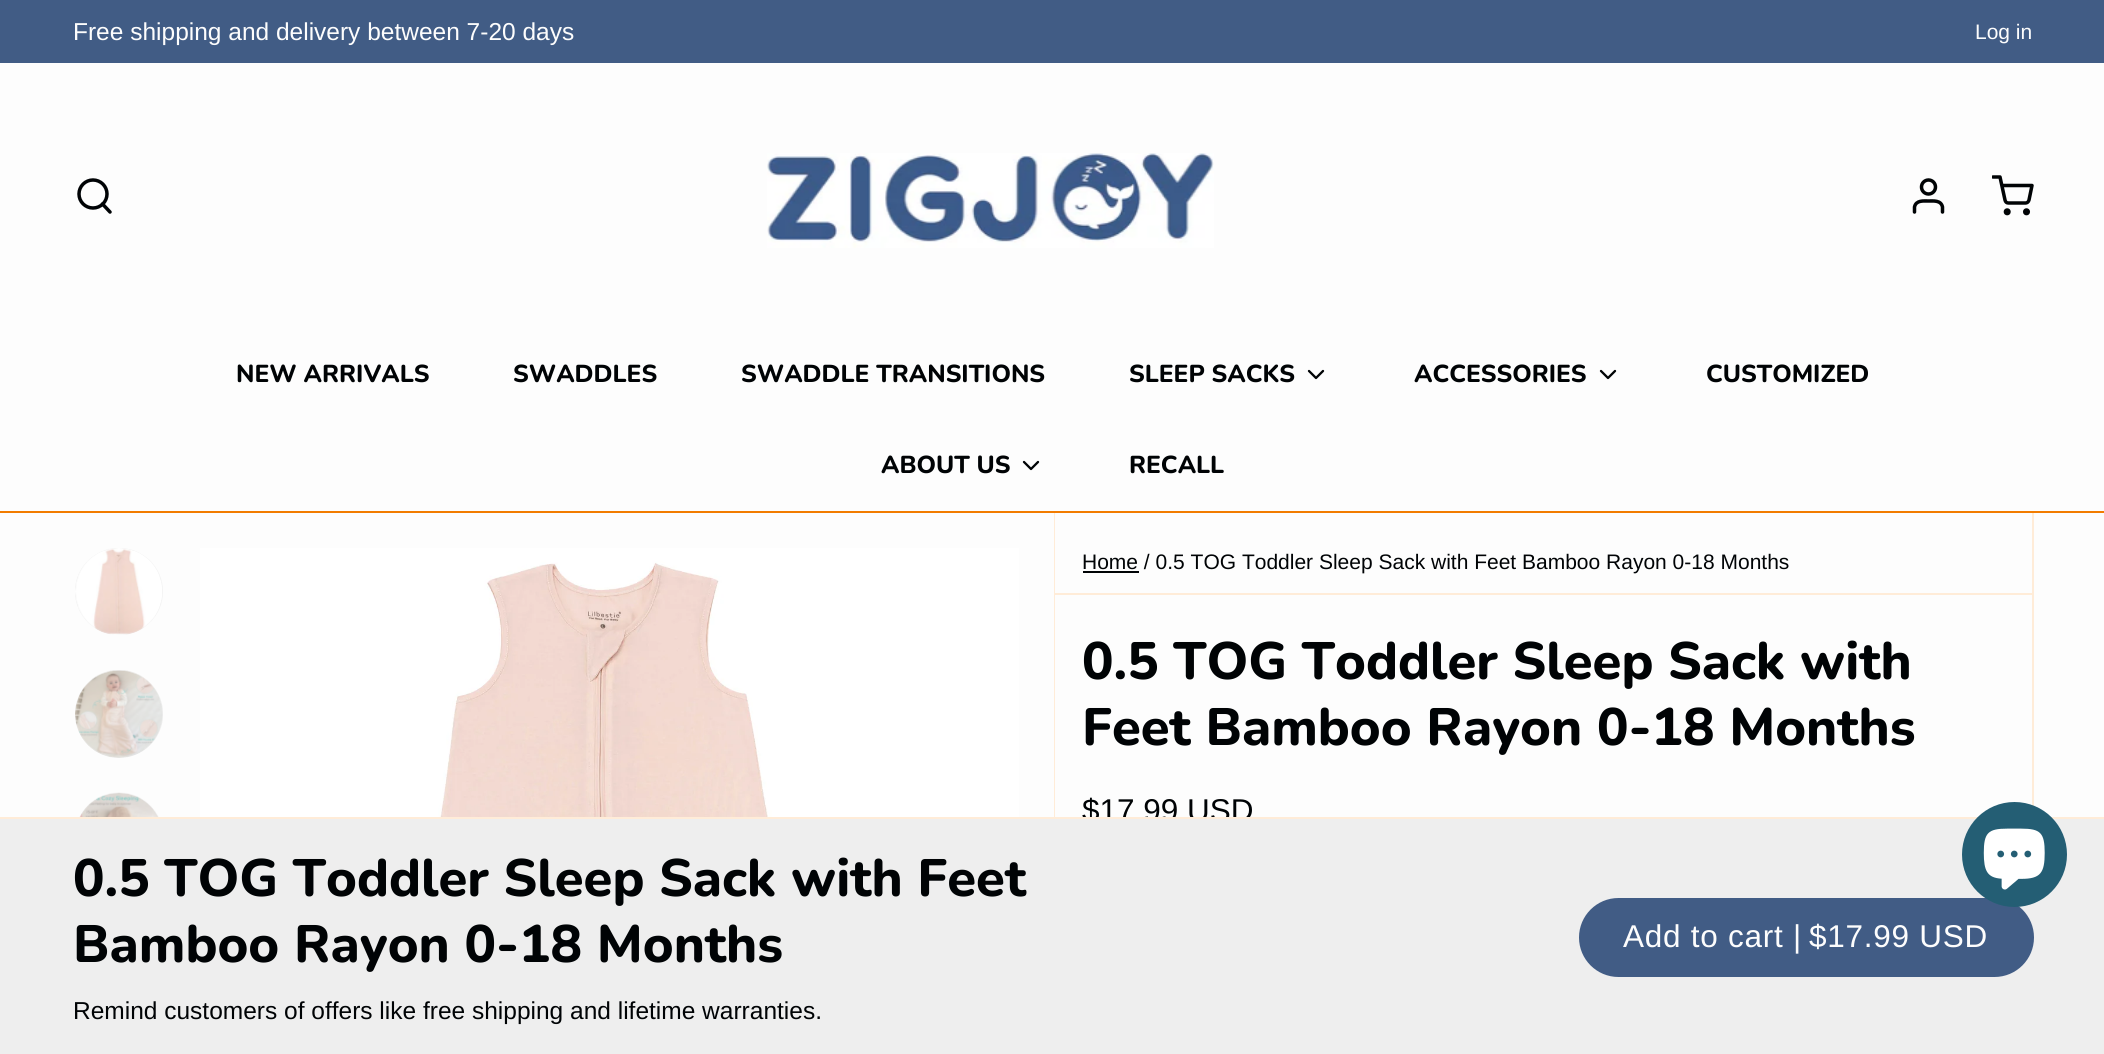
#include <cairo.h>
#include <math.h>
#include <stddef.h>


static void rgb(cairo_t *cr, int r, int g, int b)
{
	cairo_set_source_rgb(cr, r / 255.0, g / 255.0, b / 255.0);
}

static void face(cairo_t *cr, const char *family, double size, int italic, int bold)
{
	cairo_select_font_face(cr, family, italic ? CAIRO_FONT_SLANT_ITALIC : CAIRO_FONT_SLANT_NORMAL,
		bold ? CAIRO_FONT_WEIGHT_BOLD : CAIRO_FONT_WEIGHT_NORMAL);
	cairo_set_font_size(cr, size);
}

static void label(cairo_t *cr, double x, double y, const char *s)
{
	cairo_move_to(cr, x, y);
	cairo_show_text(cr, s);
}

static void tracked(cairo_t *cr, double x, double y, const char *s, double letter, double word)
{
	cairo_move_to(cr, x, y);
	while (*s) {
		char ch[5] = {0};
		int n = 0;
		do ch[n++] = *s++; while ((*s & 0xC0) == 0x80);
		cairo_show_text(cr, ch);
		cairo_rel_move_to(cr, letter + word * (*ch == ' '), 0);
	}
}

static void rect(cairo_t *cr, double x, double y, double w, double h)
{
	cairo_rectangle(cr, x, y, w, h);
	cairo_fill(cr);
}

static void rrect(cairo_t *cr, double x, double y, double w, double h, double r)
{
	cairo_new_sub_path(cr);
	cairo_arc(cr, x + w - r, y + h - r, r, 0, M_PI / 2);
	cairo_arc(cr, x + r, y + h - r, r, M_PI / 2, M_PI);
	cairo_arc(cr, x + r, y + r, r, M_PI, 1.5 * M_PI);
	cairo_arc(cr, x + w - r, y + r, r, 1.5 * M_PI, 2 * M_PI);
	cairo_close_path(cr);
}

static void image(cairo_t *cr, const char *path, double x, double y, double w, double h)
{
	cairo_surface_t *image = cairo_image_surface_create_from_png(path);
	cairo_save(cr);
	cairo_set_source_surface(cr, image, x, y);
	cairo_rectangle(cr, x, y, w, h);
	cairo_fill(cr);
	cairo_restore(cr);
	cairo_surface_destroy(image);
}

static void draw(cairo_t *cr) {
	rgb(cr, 253, 253, 253);
	cairo_paint(cr);
	rgb(cr, 65, 92, 133);
	rect(cr, 0, 0, 2104, 63);
	face(cr, "Liberation Sans", 24.5, 0, 0);
	rgb(cr, 253, 253, 253);
	label(cr, 73, 40, "Free shipping and delivery between 7-20 days");
	face(cr, "Liberation Sans", 21, 0, 0);
	label(cr, 1975, 39, "Log in");
	rgb(cr, 242, 124, 0);
	rect(cr, 0, 511, 2104, 2);
	cairo_new_path(cr);
	cairo_arc(cr, 93, 194, 14, 0, 2 * M_PI);
	rgb(cr, 0, 3, 5);
	cairo_set_line_width(cr, 3.5);
	cairo_stroke(cr);
	cairo_new_path(cr);
	cairo_move_to(cr, 110, 212);
	cairo_line_to(cr, 102.5, 204);
	cairo_set_line_cap(cr, CAIRO_LINE_CAP_ROUND);
	cairo_set_line_join(cr, CAIRO_LINE_JOIN_ROUND);
	cairo_stroke(cr);
	image(cr, "image0.png", 767, 153, 447, 95);
	cairo_new_path(cr);
	cairo_move_to(cr, 1942.5, 212);
	cairo_line_to(cr, 1942.5, 207);
	cairo_curve_to(cr, 1941, 200, 1933.5, 201, 1928.5, 201);
	cairo_curve_to(cr, 1923.5, 201, 1916, 200, 1914.5, 207);
	cairo_line_to(cr, 1914.5, 212);
	cairo_stroke(cr);
	cairo_arc(cr, 1928.5, 187, 7, 0, 2 * M_PI);
	cairo_set_line_cap(cr, CAIRO_LINE_CAP_BUTT);
	cairo_set_line_join(cr, CAIRO_LINE_JOIN_MITER);
	cairo_stroke(cr);
	cairo_arc(cr, 2007.2, 211.8, 1.8, 0, 2 * M_PI);
	cairo_stroke(cr);
	cairo_arc(cr, 2026.5, 211.8, 1.8, 0, 2 * M_PI);
	cairo_stroke(cr);
	cairo_save(cr);
	cairo_rectangle(cr, 1992, 175, 42, 42);
	cairo_clip(cr);
	cairo_new_path(cr);
	cairo_move_to(cr, 1993, 177);
	cairo_line_to(cr, 2000, 177);
	cairo_line_to(cr, 2005, 200);
	cairo_curve_to(cr, 2005.5, 202, 2006.5, 203, 2008.5, 203);
	cairo_line_to(cr, 2025.5, 203);
	cairo_curve_to(cr, 2027, 203, 2028.5, 202, 2029, 200);
	cairo_line_to(cr, 2032, 185.5);
	cairo_line_to(cr, 2002, 185.5);
	cairo_set_line_cap(cr, CAIRO_LINE_CAP_ROUND);
	cairo_set_line_join(cr, CAIRO_LINE_JOIN_ROUND);
	cairo_stroke(cr);
	cairo_restore(cr);
	face(cr, "Nunito ExtraBold", 24.5, 0, 0);
	label(cr, 236, 382, "NEW ARRIVALS");
	label(cr, 513, 382, "SWADDLES");
	label(cr, 741, 382, "SWADDLE TRANSITIONS");
	label(cr, 1129, 382, "SLEEP SACKS");
	cairo_new_path(cr);
	cairo_move_to(cr, 1309, 371);
	cairo_line_to(cr, 1316, 378);
	cairo_line_to(cr, 1323, 371);
	cairo_set_line_width(cr, 2.3);
	cairo_set_line_cap(cr, CAIRO_LINE_CAP_ROUND);
	cairo_set_line_join(cr, CAIRO_LINE_JOIN_ROUND);
	cairo_stroke(cr);
	label(cr, 1414, 382, "ACCESSORIES");
	cairo_new_path(cr);
	cairo_move_to(cr, 1601, 371);
	cairo_line_to(cr, 1608, 378);
	cairo_line_to(cr, 1615, 371);
	cairo_stroke(cr);
	label(cr, 1706, 382, "CUSTOMIZED");
	label(cr, 881, 473, "ABOUT US");
	cairo_new_path(cr);
	cairo_move_to(cr, 1024, 462);
	cairo_line_to(cr, 1031, 469);
	cairo_line_to(cr, 1038, 462);
	cairo_stroke(cr);
	label(cr, 1129, 473, "RECALL");
	rgb(cr, 238, 238, 238);
	rrect(cr, 75, 548, 88, 87, 43.5);
	cairo_fill(cr);
	image(cr, "image1.png", 75, 548, 88, 87);
	cairo_arc(cr, 119, 714, 44, 0, 2 * M_PI);
	cairo_fill(cr);
	image(cr, "image2.png", 75, 670, 88, 88);
	rrect(cr, 75, 793, 88, 87, 43.5);
	cairo_fill(cr);
	image(cr, "image3.png", 79, 792, 80, 25);
	image(cr, "image4.png", 200, 548, 819, 269);
	rgb(cr, 255, 236, 216);
	rect(cr, 2032, 513, 2, 293);
	rect(cr, 1054, 513, 1, 304);
	rect(cr, 1055, 593, 977, 2);
	rgb(cr, 0, 3, 5);
	rect(cr, 1083, 571, 56, 2);
	face(cr, "Liberation Sans", 21, 0, 0);
	label(cr, 1082, 569, "Home / 0.5 TOG Toddler Sleep Sack with Feet Bamboo Rayon 0-18 Months");
	face(cr, "Nunito ExtraBold", 52.5, 0, 0);
	label(cr, 1082, 679, "0.5 TOG Toddler Sleep Sack with");
	label(cr, 1082, 745, "Feet Bamboo Rayon 0-18 Months");
	face(cr, "Liberation Sans", 31.5, 0, 0);
	label(cr, 1082, 821, "$17.99 USD");
	rgb(cr, 238, 238, 238);
	rect(cr, 0, 819, 2104, 235);
	rgb(cr, 255, 236, 216);
	rect(cr, 0, 817, 2104, 2);
	face(cr, "Nunito ExtraBold", 52.5, 0, 0);
	rgb(cr, 0, 3, 5);
	label(cr, 73, 896, "0.5 TOG Toddler Sleep Sack with Feet");
	label(cr, 73, 962, "Bamboo Rayon 0-18 Months");
	face(cr, "Liberation Sans", 24.5, 0, 0);
	label(cr, 73, 1019, "Remind customers of offers like free shipping and lifetime warranties.");
	rgb(cr, 65, 92, 133);
	rrect(cr, 1580, 899, 453, 77, 38.5);
	cairo_fill_preserve(cr);
	cairo_set_line_width(cr, 2);
	cairo_set_line_cap(cr, CAIRO_LINE_CAP_BUTT);
	cairo_set_line_join(cr, CAIRO_LINE_JOIN_MITER);
	cairo_stroke(cr);
	face(cr, "Liberation Sans", 31.5, 0, 0);
	rgb(cr, 253, 253, 253);
	tracked(cr, 1623, 947, "Add to cart |", 0.75, 0);
	tracked(cr, 1809, 947, "$17.99 USD", 0.75, 0);
	rgb(cr, 36, 94, 116);
	cairo_new_path(cr);
	cairo_arc(cr, 2014.5, 854.5, 52.5, 0, 2 * M_PI);
	cairo_fill(cr);
	image(cr, "image5.png", 1983, 828, 62, 62);
}

int main(void) {
	cairo_surface_t *surface = cairo_image_surface_create(CAIRO_FORMAT_RGB24, 2104, 1054);
	cairo_t *cr = cairo_create(surface);
	cairo_font_options_t *options = cairo_font_options_create();
	cairo_font_options_set_hint_metrics(options, CAIRO_HINT_METRICS_OFF);
	cairo_font_options_set_hint_style(options, CAIRO_HINT_STYLE_NONE);
	cairo_set_font_options(cr, options);
	cairo_set_miter_limit(cr, 4);
	draw(cr);
	cairo_surface_write_to_png(surface, "render.png");
	cairo_font_options_destroy(options);
	cairo_destroy(cr);
	cairo_surface_destroy(surface);
	return 0;
}
